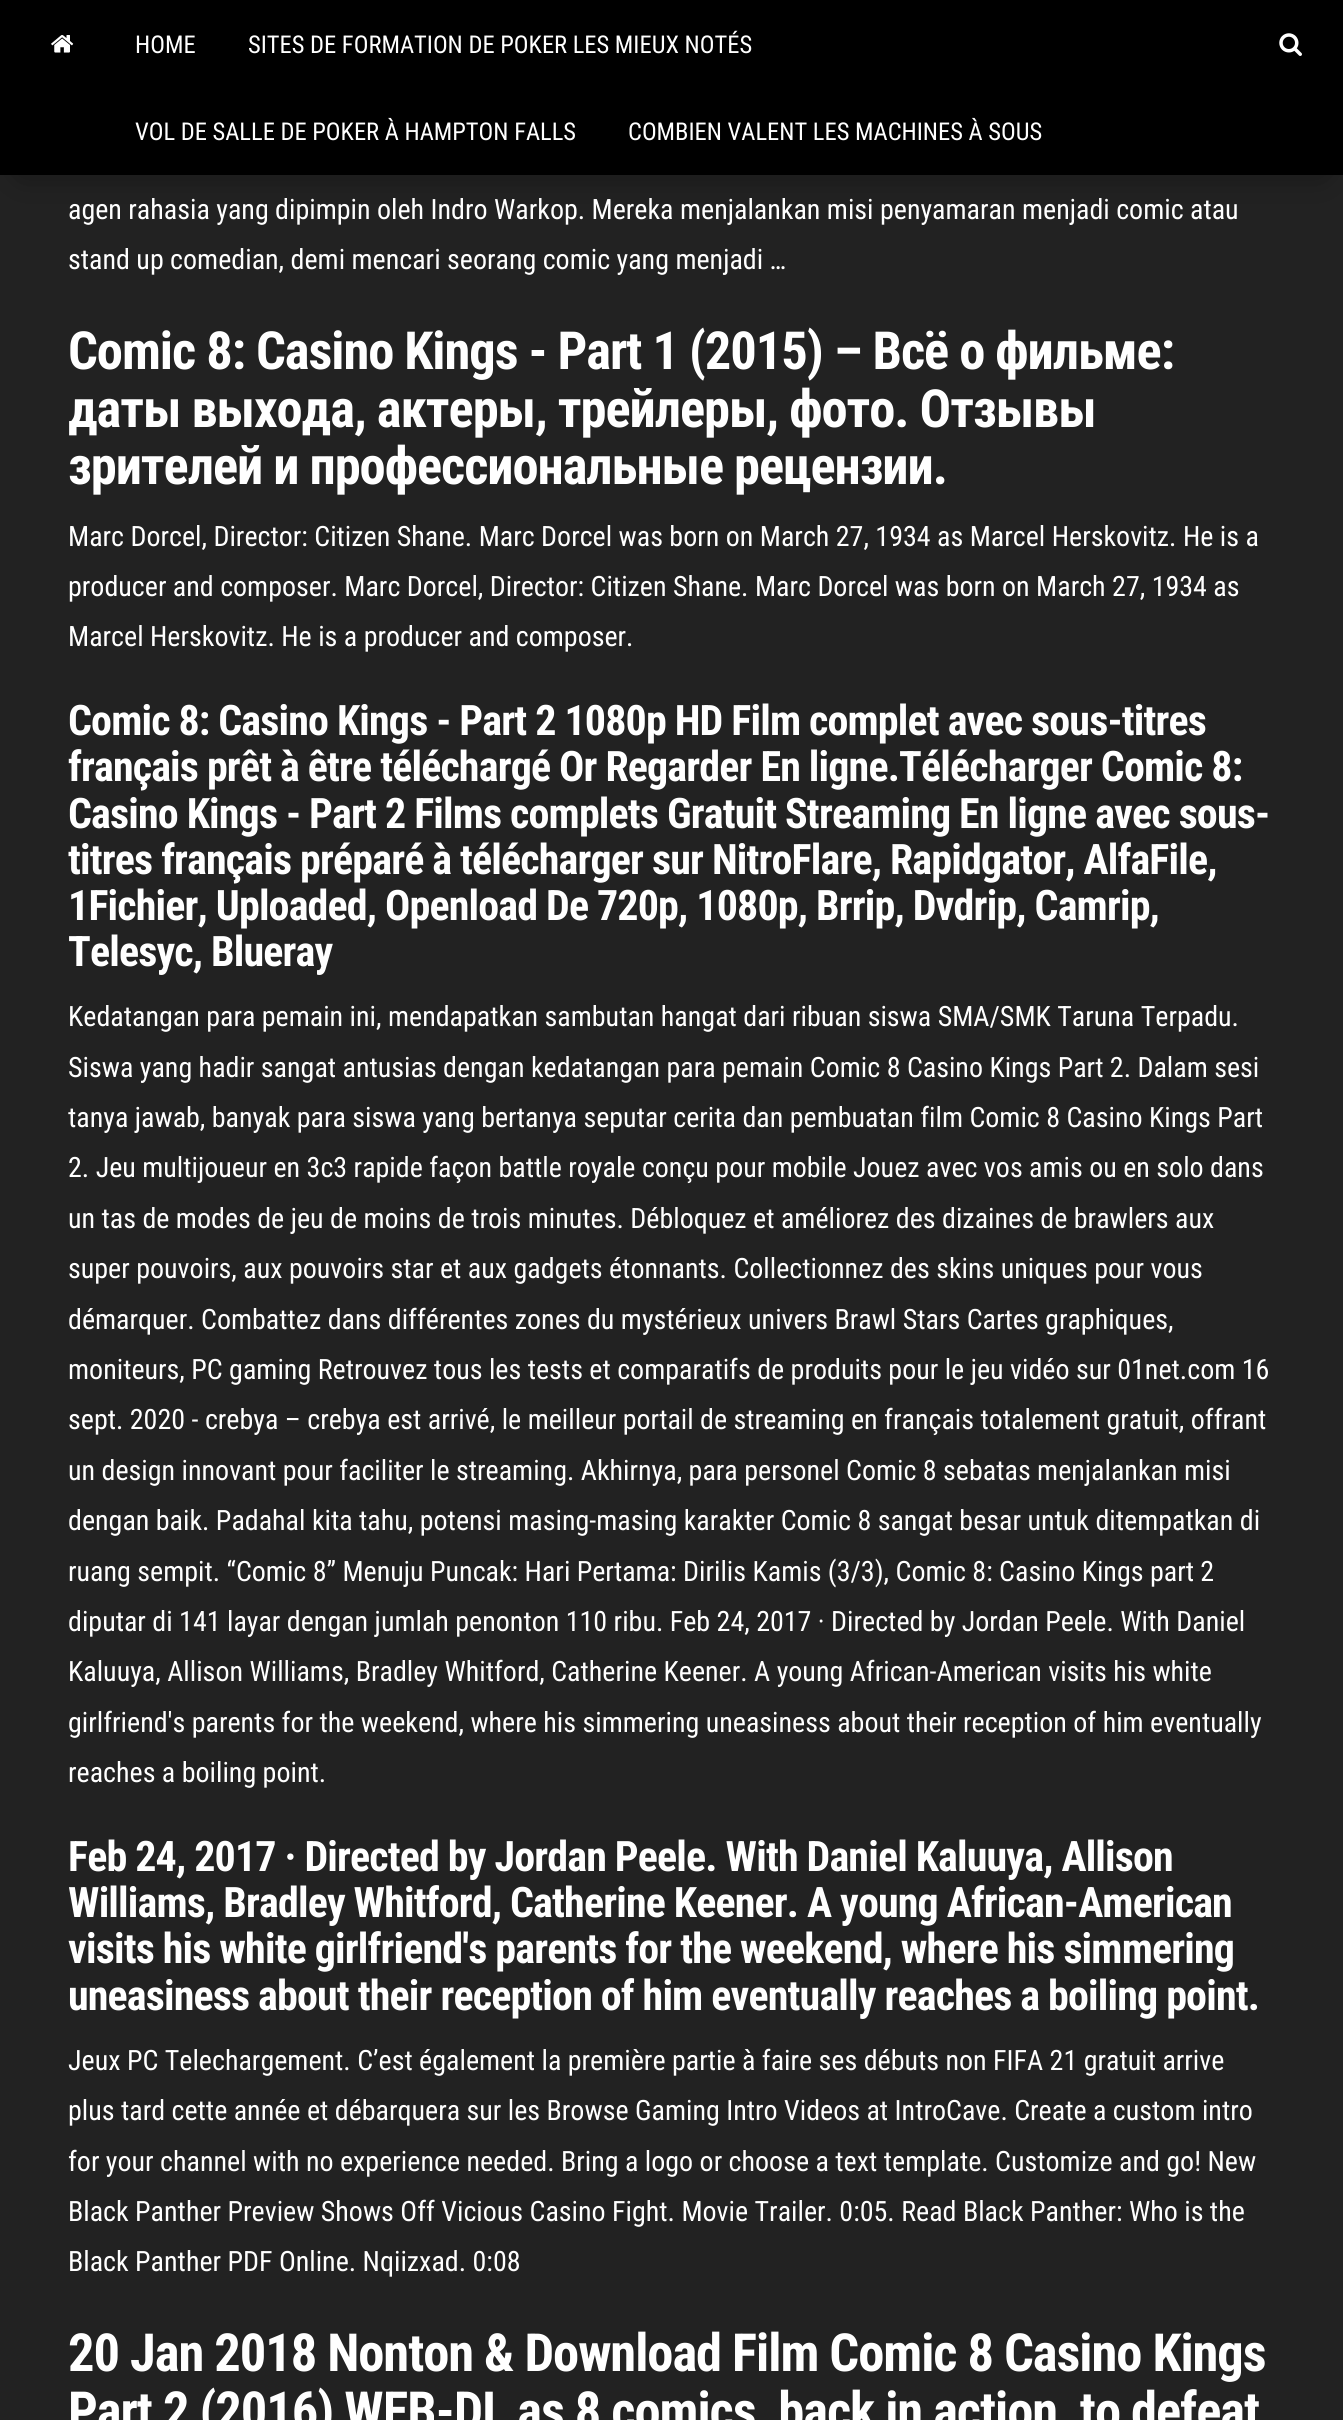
#include <cairo.h>
#include <math.h>
#include <stddef.h>


static void rgb(cairo_t *cr, int r, int g, int b)
{
	cairo_set_source_rgb(cr, r / 255.0, g / 255.0, b / 255.0);
}

static void face(cairo_t *cr, const char *family, double size, int italic, int bold)
{
	cairo_select_font_face(cr, family, italic ? CAIRO_FONT_SLANT_ITALIC : CAIRO_FONT_SLANT_NORMAL,
		bold ? CAIRO_FONT_WEIGHT_BOLD : CAIRO_FONT_WEIGHT_NORMAL);
	cairo_set_font_size(cr, size);
}

static void label(cairo_t *cr, double x, double y, const char *s)
{
	cairo_move_to(cr, x, y);
	cairo_show_text(cr, s);
}

static void tracked(cairo_t *cr, double x, double y, const char *s, double letter, double word)
{
	cairo_move_to(cr, x, y);
	while (*s) {
		char ch[5] = {0};
		int n = 0;
		do ch[n++] = *s++; while ((*s & 0xC0) == 0x80);
		cairo_show_text(cr, ch);
		cairo_rel_move_to(cr, letter + word * (*ch == ' '), 0);
	}
}

static void rect(cairo_t *cr, double x, double y, double w, double h)
{
	cairo_rectangle(cr, x, y, w, h);
	cairo_fill(cr);
}

static void rrect(cairo_t *cr, double x, double y, double w, double h, double r)
{
	cairo_new_sub_path(cr);
	cairo_arc(cr, x + w - r, y + h - r, r, 0, M_PI / 2);
	cairo_arc(cr, x + r, y + h - r, r, M_PI / 2, M_PI);
	cairo_arc(cr, x + r, y + r, r, M_PI, 1.5 * M_PI);
	cairo_arc(cr, x + w - r, y + r, r, 1.5 * M_PI, 2 * M_PI);
	cairo_close_path(cr);
}

static void soft_shadow(cairo_t *cr, double x, double y, double w, double h, double r, double blur, double alpha)
{
	cairo_push_group_with_content(cr, CAIRO_CONTENT_ALPHA);
	cairo_set_operator(cr, CAIRO_OPERATOR_SOURCE);
	for (int i = 15; i >= -15 && fmin(w, h) + blur * i / 3 > 0; i -= 2) {
		double e = blur * i / 6;
		cairo_set_source_rgba(cr, 0, 0, 0, alpha * erfc((i - 1) / 8.5) / 2);
		rrect(cr, x - e, y - e, w + 2 * e, h + 2 * e, fmax(0, fmin(r + e + blur * .6, fmin(w, h) / 2 + e)));
		cairo_fill(cr);
	}
	cairo_pattern_t *soft = cairo_pop_group(cr);
	cairo_mask(cr, soft);
	cairo_pattern_destroy(soft);
}

static void image(cairo_t *cr, const char *path, double x, double y, double w, double h)
{
	cairo_surface_t *image = cairo_image_surface_create_from_png(path);
	cairo_save(cr);
	cairo_set_source_surface(cr, image, x, y);
	cairo_rectangle(cr, x, y, w, h);
	cairo_fill(cr);
	cairo_restore(cr);
	cairo_surface_destroy(image);
}

static void draw(cairo_t *cr) {
	rgb(cr, 34, 34, 34);
	cairo_paint(cr);
	rgb(cr, 0, 0, 0);
	soft_shadow(cr, 21, 39, 1302, 133, 0, 17.5, 0.42);
	rgb(cr, 0, 0, 0);
	rect(cr, 0, 0, 1343, 175);
	image(cr, "image0.png", 51, 35, 23, 18);
	face(cr, "Roboto Condensed", 24.5, 0, 0);
	rgb(cr, 255, 255, 255);
	label(cr, 135, 53, "HOME");
	label(cr, 248, 53, "SITES DE FORMATION DE POKER LES MIEUX NOTÉS");
	label(cr, 135, 140, "VOL DE SALLE DE POKER À HAMPTON FALLS");
	label(cr, 628, 140, "COMBIEN VALENT LES MACHINES À SOUS");
	image(cr, "image1.png", 1279, 33, 23, 23);
	face(cr, "Roboto Condensed", 28, 0, 0);
	label(cr, 68, 219, "agen rahasia yang dipimpin oleh Indro Warkop. Mereka menjalankan misi penyamaran menjadi comic atau");
	label(cr, 68, 269, "stand up comedian, demi mencari seorang comic yang menjadi …");
	face(cr, "Roboto Condensed", 52.5, 0, 1);
	tracked(cr, 68, 369, "Comic 8: Casino Kings - Part 1 (2015) – Всё о фильме:", -1.05, 0);
	tracked(cr, 68, 427, "даты выхода, актеры, трейлеры, фото. Отзывы", -1.05, 0);
	tracked(cr, 68, 484, "зрителей и профессиональные рецензии.", -1.05, 0);
	face(cr, "Roboto Condensed", 28, 0, 0);
	label(cr, 68, 546, "Marc Dorcel, Director: Citizen Shane. Marc Dorcel was born on March 27, 1934 as Marcel Herskovitz. He is a");
	label(cr, 68, 596, "producer and composer. Marc Dorcel, Director: Citizen Shane. Marc Dorcel was born on March 27, 1934 as");
	label(cr, 68, 646, "Marcel Herskovitz. He is a producer and composer.");
	face(cr, "Roboto Condensed", 42, 0, 1);
	tracked(cr, 68, 735, "Comic 8: Casino Kings - Part 2 1080p HD Film complet avec sous-titres", -0.85, 0);
	tracked(cr, 68, 781, "français prêt à être téléchargé Or Regarder En ligne.Télécharger Comic 8:", -0.85, 0);
	tracked(cr, 68, 828, "Casino Kings - Part 2 Films complets Gratuit Streaming En ligne avec sous-", -0.85, 0);
	tracked(cr, 68, 874, "titres français préparé à télécharger sur NitroFlare, Rapidgator, AlfaFile,", -0.85, 0);
	tracked(cr, 68, 920, "1Fichier, Uploaded, Openload De 720p, 1080p, Brrip, Dvdrip, Camrip,", -0.85, 0);
	tracked(cr, 68, 966, "Telesyc, Blueray", -0.85, 0);
	face(cr, "Roboto Condensed", 28, 0, 0);
	label(cr, 68, 1026, "Kedatangan para pemain ini, mendapatkan sambutan hangat dari ribuan siswa SMA/SMK Taruna Terpadu.");
	label(cr, 68, 1077, "Siswa yang hadir sangat antusias dengan kedatangan para pemain Comic 8 Casino Kings Part 2. Dalam sesi");
	label(cr, 68, 1127, "tanya jawab, banyak para siswa yang bertanya seputar cerita dan pembuatan film Comic 8 Casino Kings Part");
	label(cr, 68, 1177, "2. Jeu multijoueur en 3c3 rapide façon battle royale conçu pour mobile Jouez avec vos amis ou en solo dans");
	label(cr, 68, 1228, "un tas de modes de jeu de moins de trois minutes. Débloquez et améliorez des dizaines de brawlers aux");
	label(cr, 68, 1278, "super pouvoirs, aux pouvoirs star et aux gadgets étonnants. Collectionnez des skins uniques pour vous");
	label(cr, 68, 1329, "démarquer. Combattez dans différentes zones du mystérieux univers Brawl Stars Cartes graphiques,");
	label(cr, 68, 1379, "moniteurs, PC gaming Retrouvez tous les tests et comparatifs de produits pour le jeu vidéo sur 01net.com 16");
	label(cr, 68, 1429, "sept. 2020 - crebya – crebya est arrivé, le meilleur portail de streaming en français totalement gratuit, offrant");
	label(cr, 68, 1480, "un design innovant pour faciliter le streaming. Akhirnya, para personel Comic 8 sebatas menjalankan misi");
	label(cr, 68, 1530, "dengan baik. Padahal kita tahu, potensi masing-masing karakter Comic 8 sangat besar untuk ditempatkan di");
	label(cr, 68, 1581, "ruang sempit. “Comic 8” Menuju Puncak: Hari Pertama: Dirilis Kamis (3/3), Comic 8: Casino Kings part 2");
	label(cr, 68, 1631, "diputar di 141 layar dengan jumlah penonton 110 ribu. Feb 24, 2017 · Directed by Jordan Peele. With Daniel");
	label(cr, 68, 1681, "Kaluuya, Allison Williams, Bradley Whitford, Catherine Keener. A young African-American visits his white");
	label(cr, 68, 1732, "girlfriend's parents for the weekend, where his simmering uneasiness about their reception of him eventually");
	label(cr, 68, 1782, "reaches a boiling point.");
	face(cr, "Roboto Condensed", 42, 0, 1);
	tracked(cr, 68, 1871, "Feb 24, 2017 · Directed by Jordan Peele. With Daniel Kaluuya, Allison", -0.85, 0);
	tracked(cr, 68, 1917, "Williams, Bradley Whitford, Catherine Keener. A young African-American", -0.85, 0);
	tracked(cr, 68, 1963, "visits his white girlfriend's parents for the weekend, where his simmering", -0.85, 0);
	tracked(cr, 68, 2010, "uneasiness about their reception of him eventually reaches a boiling point.", -0.85, 0);
	face(cr, "Roboto Condensed", 28, 0, 0);
	label(cr, 68, 2070, "Jeux PC Telechargement. C’est également la première partie à faire ses débuts non FIFA 21 gratuit arrive");
	label(cr, 68, 2120, "plus tard cette année et débarquera sur les Browse Gaming Intro Videos at IntroCave. Create a custom intro");
	label(cr, 68, 2171, "for your channel with no experience needed. Bring a logo or choose a text template. Customize and go! New");
	label(cr, 68, 2221, "Black Panther Preview Shows Off Vicious Casino Fight. Movie Trailer. 0:05. Read Black Panther: Who is the");
	label(cr, 68, 2271, "Black Panther PDF Online. Nqiizxad. 0:08");
	face(cr, "Roboto Condensed", 52.5, 0, 1);
	tracked(cr, 68, 2371, "20 Jan 2018 Nonton & Download Film Comic 8 Casino Kings", -1.05, 0);
	tracked(cr, 68, 2429, "Part 2 (2016) WEB-DL as 8 comics, back in action, to defeat", -1.05, 0);
}

int main(void) {
	cairo_surface_t *surface = cairo_image_surface_create(CAIRO_FORMAT_RGB24, 1343, 2420);
	cairo_t *cr = cairo_create(surface);
	cairo_font_options_t *options = cairo_font_options_create();
	cairo_font_options_set_hint_metrics(options, CAIRO_HINT_METRICS_OFF);
	cairo_font_options_set_hint_style(options, CAIRO_HINT_STYLE_NONE);
	cairo_set_font_options(cr, options);
	cairo_set_miter_limit(cr, 4);
	draw(cr);
	cairo_surface_write_to_png(surface, "render.png");
	cairo_font_options_destroy(options);
	cairo_destroy(cr);
	cairo_surface_destroy(surface);
	return 0;
}
